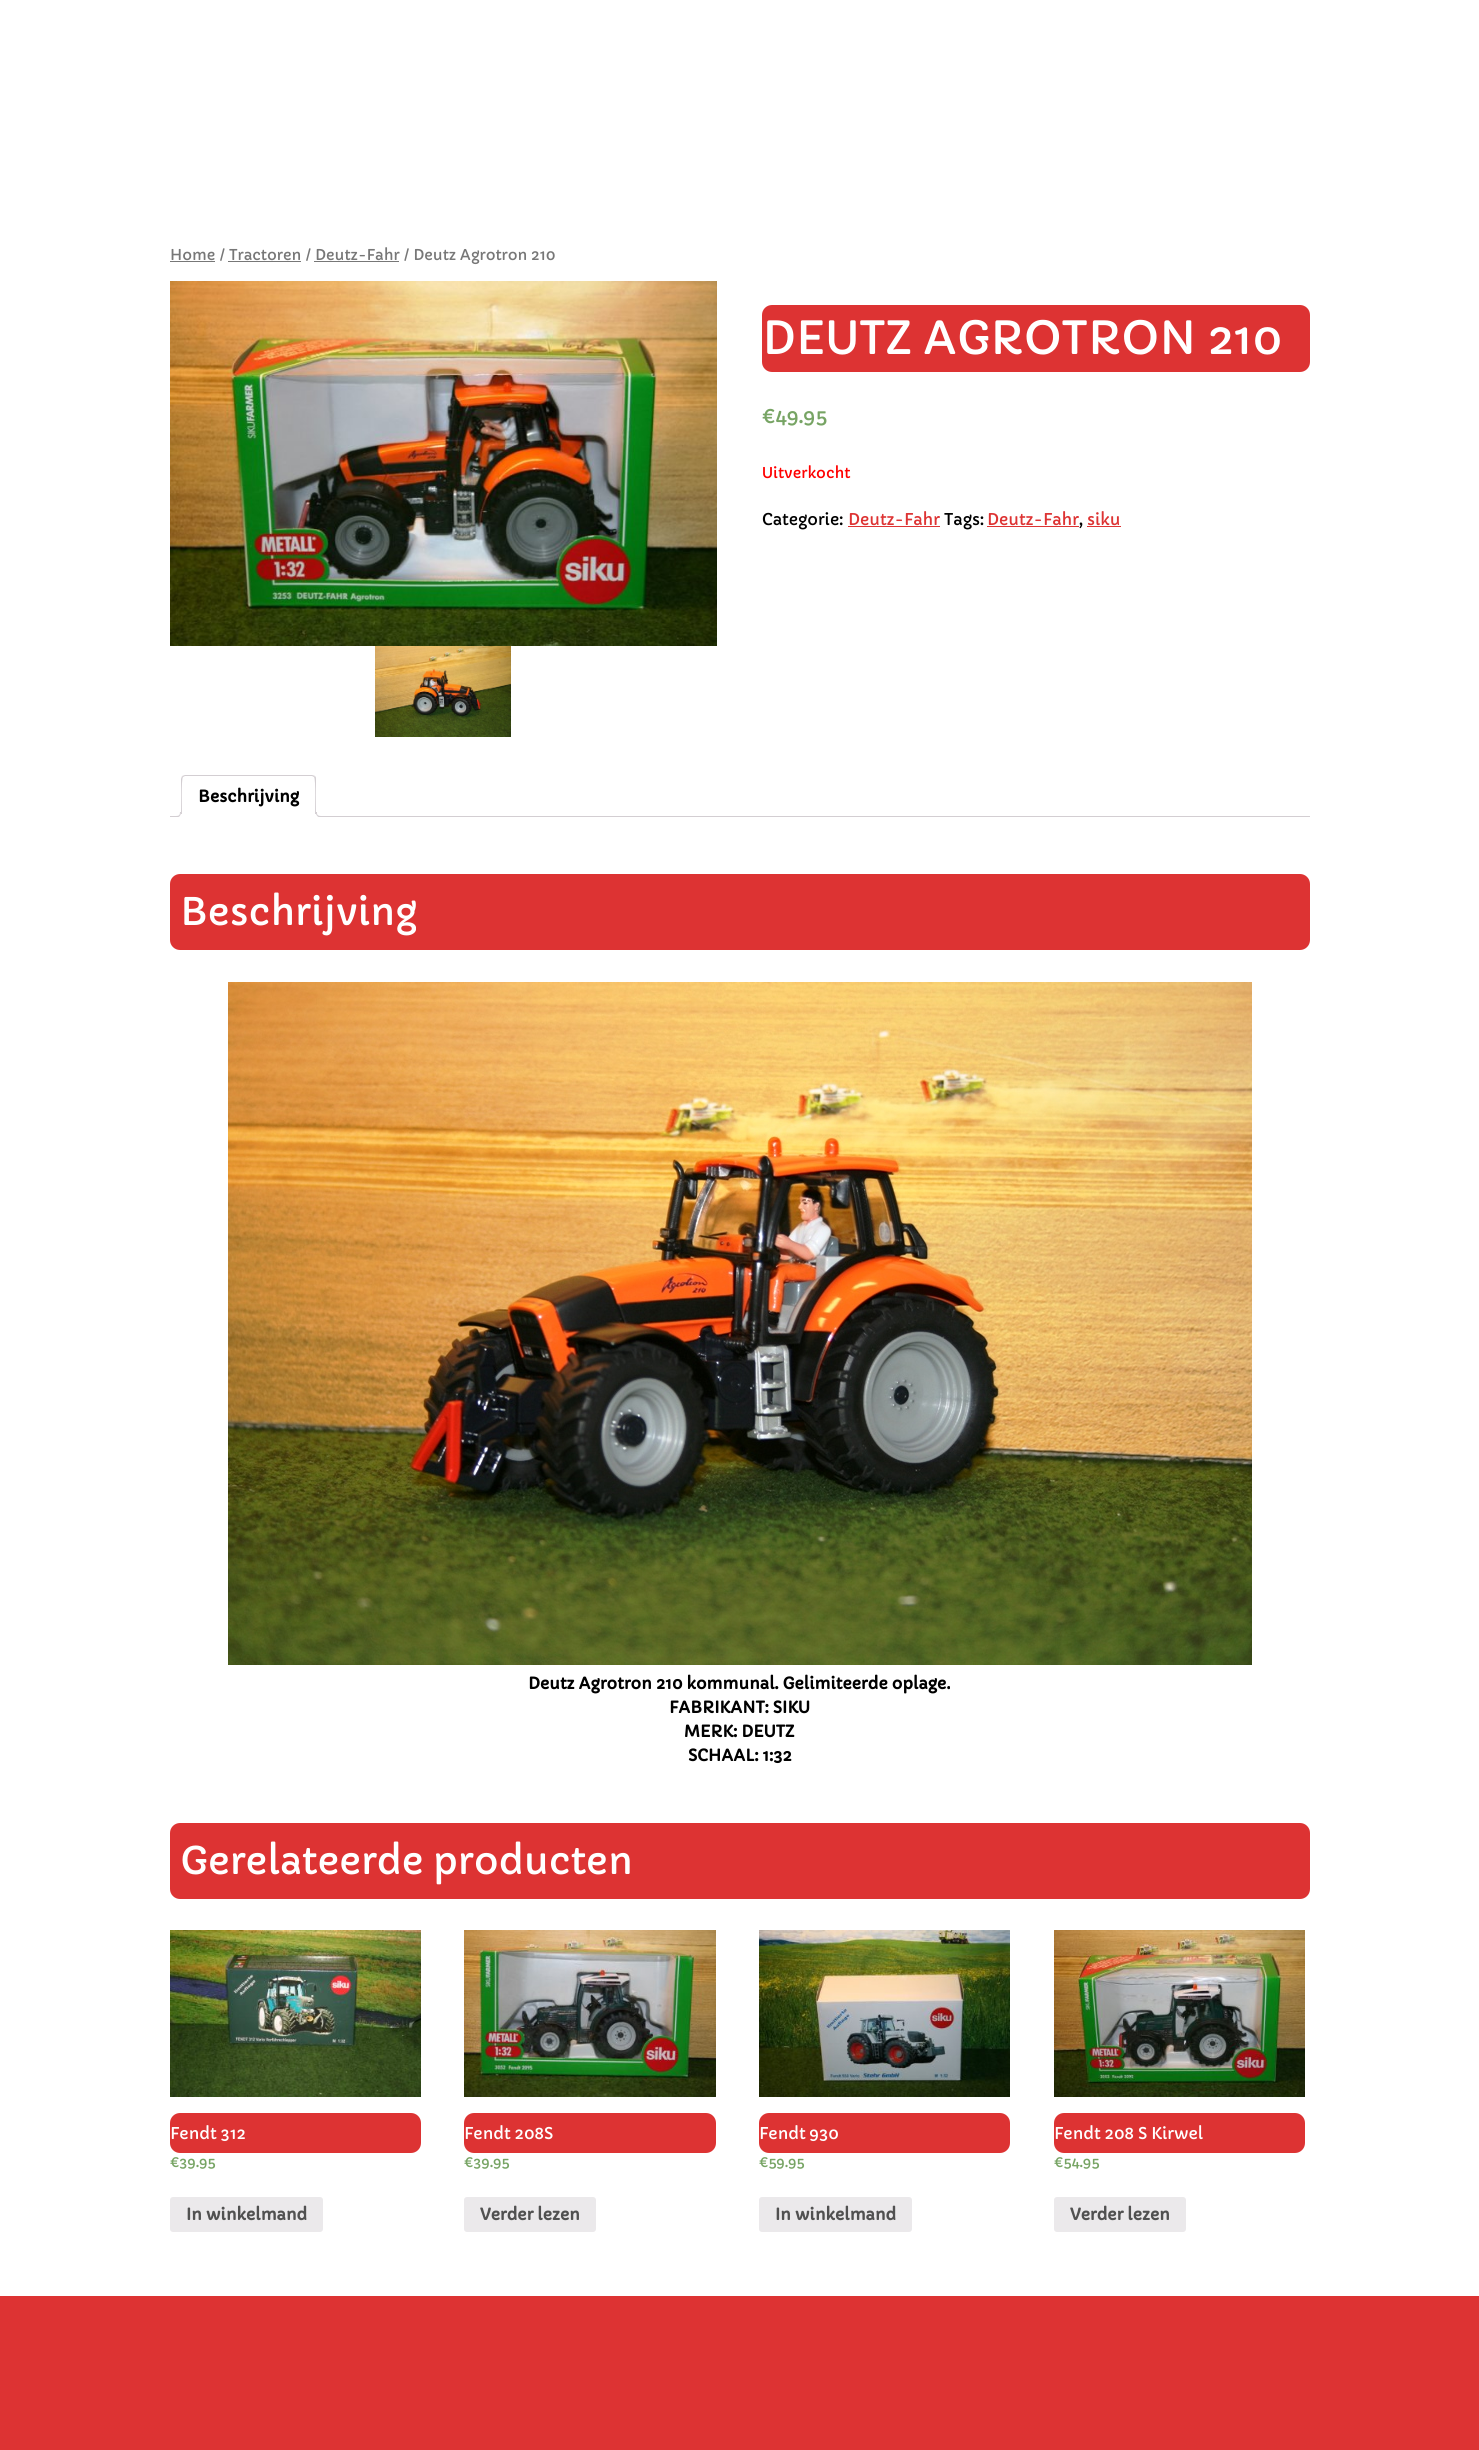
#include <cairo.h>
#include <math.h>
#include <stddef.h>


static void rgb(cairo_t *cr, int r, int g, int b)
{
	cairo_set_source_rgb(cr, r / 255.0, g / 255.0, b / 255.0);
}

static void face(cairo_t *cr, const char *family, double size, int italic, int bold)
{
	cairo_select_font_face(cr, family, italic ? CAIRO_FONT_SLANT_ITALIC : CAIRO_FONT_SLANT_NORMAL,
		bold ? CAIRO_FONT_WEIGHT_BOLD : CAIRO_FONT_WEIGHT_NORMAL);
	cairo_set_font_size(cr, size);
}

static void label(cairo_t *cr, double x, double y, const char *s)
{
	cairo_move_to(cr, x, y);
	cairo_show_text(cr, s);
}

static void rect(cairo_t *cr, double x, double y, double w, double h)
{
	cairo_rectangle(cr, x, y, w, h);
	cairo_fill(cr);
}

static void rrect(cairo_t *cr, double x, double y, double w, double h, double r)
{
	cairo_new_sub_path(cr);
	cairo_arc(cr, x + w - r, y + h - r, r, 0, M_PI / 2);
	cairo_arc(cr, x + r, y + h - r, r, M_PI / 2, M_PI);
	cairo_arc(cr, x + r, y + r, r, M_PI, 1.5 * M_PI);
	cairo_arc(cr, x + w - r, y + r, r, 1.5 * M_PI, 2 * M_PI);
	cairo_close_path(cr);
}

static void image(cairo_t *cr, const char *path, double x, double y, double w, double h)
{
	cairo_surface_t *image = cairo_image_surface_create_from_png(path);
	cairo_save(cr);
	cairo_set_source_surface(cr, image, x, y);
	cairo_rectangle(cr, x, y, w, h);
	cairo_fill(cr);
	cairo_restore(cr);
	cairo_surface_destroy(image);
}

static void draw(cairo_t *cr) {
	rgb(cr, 255, 255, 255);
	cairo_paint(cr);
	rgb(cr, 119, 119, 119);
	rect(cr, 170, 261, 45, 1);
	face(cr, "Capriola", 14.75, 0, 0);
	label(cr, 170, 260, "Home / Tractoren / Deutz-Fahr / Deutz Agrotron 210");
	rect(cr, 228, 261, 73, 1);
	rect(cr, 314, 261, 85, 1);
	image(cr, "image0.png", 170, 281, 547, 365);
	image(cr, "image1.png", 375, 646, 136, 91);
	rgb(cr, 221, 51, 51);
	rrect(cr, 762, 305, 548, 67, 10);
	cairo_fill(cr);
	face(cr, "Capriola", 45, 0, 0);
	rgb(cr, 255, 255, 255);
	label(cr, 762, 354, "DEUTZ AGROTRON 210");
	face(cr, "Capriola", 20, 0, 0);
	rgb(cr, 119, 164, 100);
	label(cr, 762, 423, "€49.95");
	face(cr, "Capriola", 14.75, 0, 0);
	rgb(cr, 255, 0, 0);
	label(cr, 762, 478, "Uitverkocht");
	face(cr, "Capriola", 16, 0, 0);
	rgb(cr, 0, 0, 0);
	label(cr, 762, 525, "Categorie:");
	rgb(cr, 221, 51, 51);
	rect(cr, 848, 526, 92, 1);
	label(cr, 848, 525, "Deutz-Fahr");
	rgb(cr, 0, 0, 0);
	label(cr, 944, 525, "Tags:");
	rgb(cr, 221, 51, 51);
	label(cr, 987, 525, "Deutz-Fahr");
	rgb(cr, 0, 0, 0);
	label(cr, 1079, 525, ",");
	rgb(cr, 221, 51, 51);
	rect(cr, 987, 526, 92, 1);
	rect(cr, 1087, 526, 34, 1);
	label(cr, 1087, 525, "siku");
	rgb(cr, 211, 206, 210);
	rect(cr, 170, 816, 1140, 1);
	rgb(cr, 255, 255, 255);
	cairo_new_path(cr);
	cairo_move_to(cr, 185, 775);
	cairo_line_to(cr, 312, 775);
	cairo_curve_to(cr, 314, 775, 316, 777, 316, 779);
	cairo_line_to(cr, 316, 817);
	cairo_line_to(cr, 181, 817);
	cairo_line_to(cr, 181, 779);
	cairo_curve_to(cr, 181, 777, 183, 775, 185, 775);
	cairo_close_path(cr);
	cairo_fill(cr);
	rgb(cr, 211, 206, 210);
	cairo_new_path(cr);
	cairo_move_to(cr, 185, 775);
	cairo_line_to(cr, 182, 776);
	cairo_line_to(cr, 183, 777);
	cairo_line_to(cr, 185, 776);
	cairo_line_to(cr, 312, 776);
	cairo_line_to(cr, 314, 777);
	cairo_line_to(cr, 315, 776);
	cairo_line_to(cr, 312, 775);
	cairo_close_path(cr);
	cairo_fill(cr);
	cairo_new_path(cr);
	cairo_move_to(cr, 316, 817);
	cairo_line_to(cr, 316, 779);
	cairo_curve_to(cr, 316, 778, 316, 777, 315, 776);
	cairo_line_to(cr, 314, 777);
	cairo_curve_to(cr, 316, 779, 315, 811, 315, 816);
	cairo_close_path(cr);
	cairo_fill(cr);
	rgb(cr, 255, 255, 255);
	cairo_new_path(cr);
	cairo_move_to(cr, 316, 817);
	cairo_line_to(cr, 315, 816);
	cairo_line_to(cr, 182, 816);
	cairo_line_to(cr, 181, 817);
	cairo_close_path(cr);
	cairo_fill(cr);
	rgb(cr, 211, 206, 210);
	cairo_new_path(cr);
	cairo_move_to(cr, 181, 817);
	cairo_line_to(cr, 182, 816);
	cairo_curve_to(cr, 182, 811, 181, 779, 183, 777);
	cairo_line_to(cr, 182, 776);
	cairo_line_to(cr, 181, 779);
	cairo_close_path(cr);
	cairo_fill(cr);
	face(cr, "Capriola", 16, 0, 1);
	rgb(cr, 0, 0, 0);
	label(cr, 198, 802, "Beschrijving");
	cairo_save(cr);
	cairo_rectangle(cr, 170, 775, 1140, 42);
	cairo_clip(cr);
	rgb(cr, 255, 255, 255);
	cairo_new_path(cr);
	cairo_move_to(cr, 178, 817);
	cairo_line_to(cr, 178, 819);
	cairo_curve_to(cr, 181.5, 819, 183, 817.5, 183, 814);
	cairo_line_to(cr, 181, 814);
	cairo_curve_to(cr, 180.5, 815.5, 179.5, 816.5, 178, 817);
	cairo_close_path(cr);
	cairo_fill(cr);
	cairo_restore(cr);
	rgb(cr, 211, 206, 210);
	cairo_set_fill_rule(cr, CAIRO_FILL_RULE_EVEN_ODD);
	cairo_new_path(cr);
	cairo_move_to(cr, 176, 812);
	cairo_line_to(cr, 181, 812);
	cairo_curve_to(cr, 181, 815.5, 179.5, 817, 176, 817);
	cairo_close_path(cr);
	cairo_move_to(cr, 176, 812);
	cairo_line_to(cr, 180, 812);
	cairo_curve_to(cr, 180, 815, 179, 816, 176, 816);
	cairo_close_path(cr);
	cairo_fill(cr);
	cairo_save(cr);
	cairo_set_fill_rule(cr, CAIRO_FILL_RULE_WINDING);
	cairo_rectangle(cr, 170, 775, 1140, 42);
	cairo_clip(cr);
	rgb(cr, 255, 255, 255);
	cairo_new_path(cr);
	cairo_move_to(cr, 314, 814);
	cairo_curve_to(cr, 314, 817.5, 315.5, 819, 319, 819);
	cairo_line_to(cr, 319, 817);
	cairo_curve_to(cr, 317.5, 816.5, 316.5, 815.5, 316, 814);
	cairo_close_path(cr);
	cairo_fill(cr);
	cairo_restore(cr);
	cairo_new_path(cr);
	cairo_move_to(cr, 316, 812);
	cairo_line_to(cr, 321, 812);
	cairo_line_to(cr, 321, 817);
	cairo_curve_to(cr, 318.5, 817, 316, 816, 316, 813);
	cairo_close_path(cr);
	cairo_move_to(cr, 317, 812);
	cairo_line_to(cr, 321, 812);
	cairo_line_to(cr, 321, 816);
	cairo_curve_to(cr, 319, 816, 317, 815.5, 317, 813);
	cairo_close_path(cr);
	cairo_fill(cr);
	rgb(cr, 221, 51, 51);
	rrect(cr, 170, 874, 1140, 76, 10);
	cairo_fill(cr);
	face(cr, "Capriola", 37.5, 0, 0);
	rgb(cr, 255, 255, 255);
	label(cr, 180, 925, "Beschrijving");
	image(cr, "image2.png", 228, 982, 1024, 683);
	face(cr, "Capriola", 16, 0, 1);
	rgb(cr, 0, 0, 0);
	label(cr, 528, 1689, "Deutz Agrotron 210 kommunal. Gelimiteerde oplage.");
	label(cr, 669, 1713, "FABRIKANT: SIKU");
	label(cr, 684, 1737, "MERK: DEUTZ");
	label(cr, 688, 1761, "SCHAAL: 1:32");
	rgb(cr, 221, 51, 51);
	rrect(cr, 170, 1823, 1140, 76, 10);
	cairo_fill(cr);
	face(cr, "Capriola", 37.5, 0, 0);
	rgb(cr, 255, 255, 255);
	label(cr, 180, 1874, "Gerelateerde producten");
	image(cr, "image3.png", 170, 1930, 251, 167);
	rgb(cr, 221, 51, 51);
	rrect(cr, 170, 2113, 251, 40, 10);
	cairo_fill(cr);
	face(cr, "Capriola", 16, 0, 0);
	rgb(cr, 255, 255, 255);
	label(cr, 170, 2139, "Fendt 312");
	face(cr, "Capriola", 14, 0, 0);
	rgb(cr, 119, 164, 100);
	label(cr, 170, 2167, "€39.95");
	rgb(cr, 235, 233, 235);
	rrect(cr, 170, 2197, 153, 35, 3);
	cairo_fill(cr);
	face(cr, "Capriola", 16, 0, 1);
	rgb(cr, 81, 81, 81);
	label(cr, 186, 2220, "In winkelmand");
	image(cr, "image4.png", 464, 1930, 252, 167);
	rgb(cr, 221, 51, 51);
	rrect(cr, 464, 2113, 252, 40, 10);
	cairo_fill(cr);
	face(cr, "Capriola", 16, 0, 0);
	rgb(cr, 255, 255, 255);
	label(cr, 464, 2139, "Fendt 208S");
	face(cr, "Capriola", 14, 0, 0);
	rgb(cr, 119, 164, 100);
	label(cr, 464, 2167, "€39.95");
	rgb(cr, 235, 233, 235);
	rrect(cr, 464, 2197, 132, 35, 3);
	cairo_fill(cr);
	face(cr, "Capriola", 16, 0, 1);
	rgb(cr, 81, 81, 81);
	label(cr, 480, 2220, "Verder lezen");
	image(cr, "image5.png", 759, 1930, 251, 167);
	rgb(cr, 221, 51, 51);
	rrect(cr, 759, 2113, 251, 40, 10);
	cairo_fill(cr);
	face(cr, "Capriola", 16, 0, 0);
	rgb(cr, 255, 255, 255);
	label(cr, 759, 2139, "Fendt 930");
	face(cr, "Capriola", 14, 0, 0);
	rgb(cr, 119, 164, 100);
	label(cr, 759, 2167, "€59.95");
	rgb(cr, 235, 233, 235);
	rrect(cr, 759, 2197, 153, 35, 3);
	cairo_fill(cr);
	face(cr, "Capriola", 16, 0, 1);
	rgb(cr, 81, 81, 81);
	label(cr, 775, 2220, "In winkelmand");
	image(cr, "image6.png", 1054, 1930, 251, 167);
	rgb(cr, 221, 51, 51);
	rrect(cr, 1054, 2113, 251, 40, 10);
	cairo_fill(cr);
	face(cr, "Capriola", 16, 0, 0);
	rgb(cr, 255, 255, 255);
	label(cr, 1054, 2139, "Fendt 208 S Kirwel");
	face(cr, "Capriola", 14, 0, 0);
	rgb(cr, 119, 164, 100);
	label(cr, 1054, 2167, "€54.95");
	rgb(cr, 235, 233, 235);
	rrect(cr, 1054, 2197, 132, 35, 3);
	cairo_fill(cr);
	face(cr, "Capriola", 16, 0, 1);
	rgb(cr, 81, 81, 81);
	label(cr, 1070, 2220, "Verder lezen");
	rgb(cr, 221, 51, 51);
	rect(cr, 0, 2296, 1479, 154);
}

int main(void) {
	cairo_surface_t *surface = cairo_image_surface_create(CAIRO_FORMAT_RGB24, 1479, 2450);
	cairo_t *cr = cairo_create(surface);
	cairo_font_options_t *options = cairo_font_options_create();
	cairo_font_options_set_hint_metrics(options, CAIRO_HINT_METRICS_OFF);
	cairo_font_options_set_hint_style(options, CAIRO_HINT_STYLE_NONE);
	cairo_set_font_options(cr, options);
	cairo_set_miter_limit(cr, 4);
	draw(cr);
	cairo_surface_write_to_png(surface, "render.png");
	cairo_font_options_destroy(options);
	cairo_destroy(cr);
	cairo_surface_destroy(surface);
	return 0;
}
